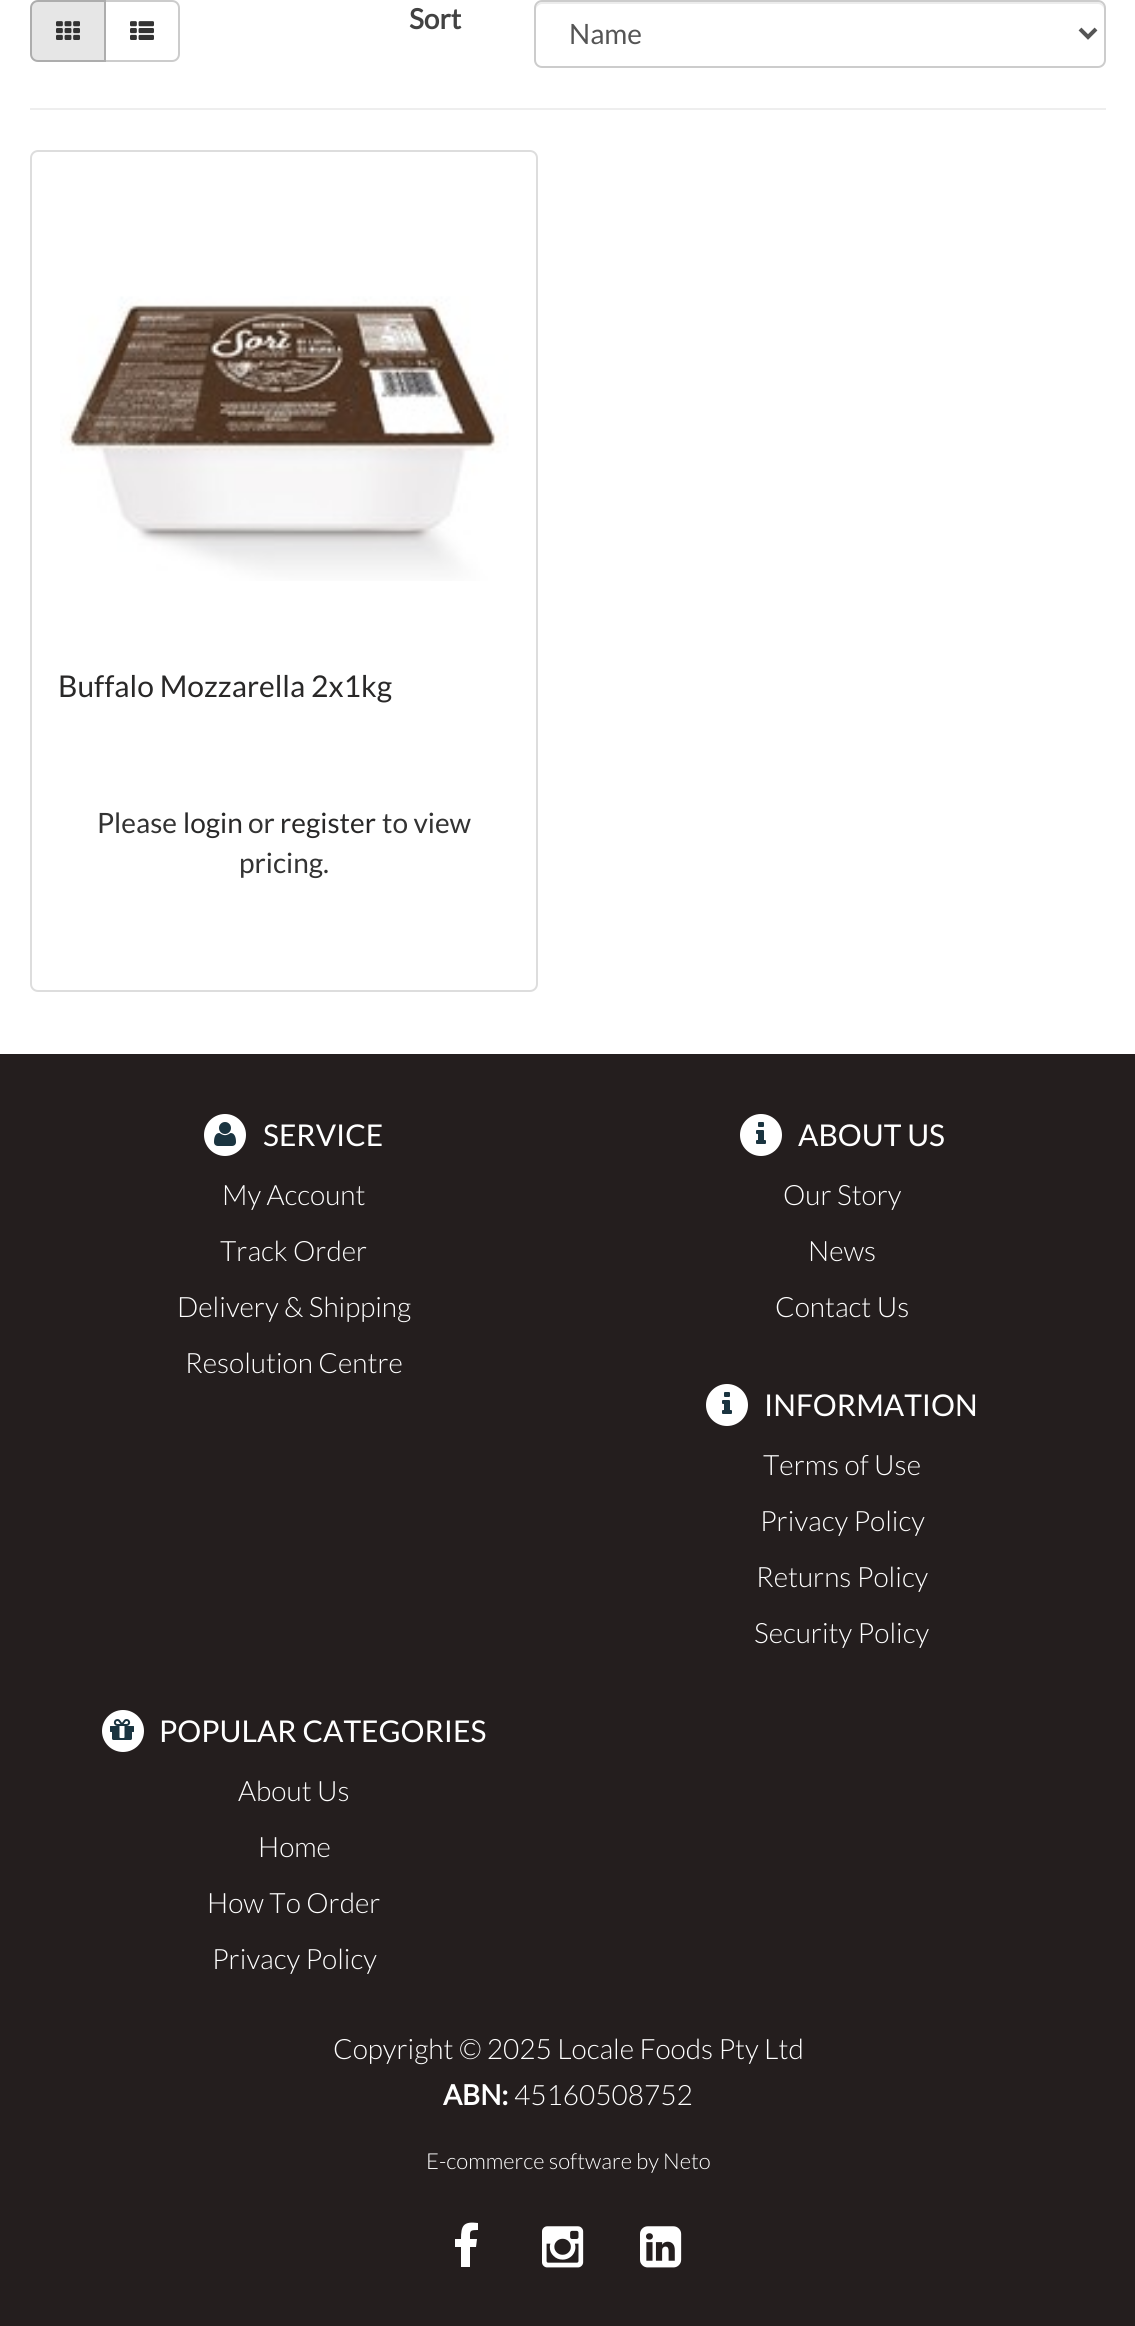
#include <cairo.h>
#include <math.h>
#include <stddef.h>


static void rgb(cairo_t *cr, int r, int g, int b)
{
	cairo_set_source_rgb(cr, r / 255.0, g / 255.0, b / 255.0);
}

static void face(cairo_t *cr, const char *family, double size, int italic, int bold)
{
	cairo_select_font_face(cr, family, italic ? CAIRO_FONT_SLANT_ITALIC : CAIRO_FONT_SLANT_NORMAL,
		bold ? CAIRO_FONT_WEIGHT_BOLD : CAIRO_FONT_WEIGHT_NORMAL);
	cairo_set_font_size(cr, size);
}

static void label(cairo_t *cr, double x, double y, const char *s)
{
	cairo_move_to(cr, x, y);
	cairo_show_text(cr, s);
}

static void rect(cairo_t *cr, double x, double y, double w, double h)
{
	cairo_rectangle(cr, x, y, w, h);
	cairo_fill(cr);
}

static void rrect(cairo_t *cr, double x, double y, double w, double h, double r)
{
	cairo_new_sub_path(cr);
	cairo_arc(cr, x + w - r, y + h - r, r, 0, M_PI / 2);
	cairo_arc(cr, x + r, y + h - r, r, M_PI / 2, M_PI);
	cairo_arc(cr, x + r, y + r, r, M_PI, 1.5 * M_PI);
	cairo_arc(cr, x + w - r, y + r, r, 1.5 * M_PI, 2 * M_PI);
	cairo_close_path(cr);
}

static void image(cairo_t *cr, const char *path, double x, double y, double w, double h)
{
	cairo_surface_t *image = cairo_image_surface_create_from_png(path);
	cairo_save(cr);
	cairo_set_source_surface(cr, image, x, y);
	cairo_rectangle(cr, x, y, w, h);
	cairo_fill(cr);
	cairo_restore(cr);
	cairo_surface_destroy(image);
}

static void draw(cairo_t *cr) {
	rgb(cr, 255, 255, 255);
	cairo_paint(cr);
	cairo_new_path(cr);
	cairo_move_to(cr, 105, 1);
	cairo_line_to(cr, 172, 1);
	cairo_curve_to(cr, 176, 1, 179, 4, 179, 8);
	cairo_line_to(cr, 179, 54);
	cairo_curve_to(cr, 179, 58, 176, 61, 172, 61);
	cairo_line_to(cr, 105, 61);
	cairo_close_path(cr);
	rgb(cr, 204, 204, 204);
	cairo_stroke(cr);
	rgb(cr, 230, 230, 230);
	cairo_new_path(cr);
	cairo_move_to(cr, 38, 1);
	cairo_line_to(cr, 105, 1);
	cairo_line_to(cr, 105, 61);
	cairo_line_to(cr, 38, 61);
	cairo_curve_to(cr, 34, 61, 31, 58, 31, 54);
	cairo_line_to(cr, 31, 8);
	cairo_curve_to(cr, 31, 4, 34, 1, 38, 1);
	cairo_close_path(cr);
	cairo_fill_preserve(cr);
	rgb(cr, 173, 173, 173);
	cairo_stroke(cr);
	image(cr, "image0.png", 56, 21, 24, 19);
	image(cr, "image1.png", 130, 21, 24, 19);
	face(cr, "Lato", 28, 0, 1);
	rgb(cr, 66, 66, 66);
	label(cr, 409, 29, "Sort");
	rgb(cr, 236, 236, 236);
	cairo_new_path(cr);
	cairo_move_to(cr, 542, 4);
	cairo_line_to(cr, 1098, 4);
	cairo_curve_to(cr, 1101, 4, 1104, 7, 1104, 10);
	cairo_line_to(cr, 1104, 8);
	cairo_curve_to(cr, 1104, 5, 1101, 2, 1098, 2);
	cairo_line_to(cr, 542, 2);
	cairo_curve_to(cr, 539, 2, 536, 5, 536, 8);
	cairo_line_to(cr, 536, 10);
	cairo_curve_to(cr, 536, 7, 539, 4, 542, 4);
	cairo_close_path(cr);
	cairo_fill(cr);
	rrect(cr, 535, 1, 570, 66, 7);
	rgb(cr, 204, 204, 204);
	cairo_stroke(cr);
	cairo_new_path(cr);
	cairo_move_to(cr, 1080, 29);
	cairo_line_to(cr, 1088, 37);
	cairo_line_to(cr, 1096, 29);
	rgb(cr, 85, 85, 85);
	cairo_set_line_width(cr, 4);
	cairo_stroke(cr);
	face(cr, "Lato", 28, 0, 0);
	label(cr, 569, 44, "Name");
	rgb(cr, 238, 238, 238);
	rect(cr, 30, 108, 1076, 2);
	rrect(cr, 31, 151, 506, 840, 7);
	rgb(cr, 221, 221, 221);
	cairo_set_line_width(cr, 2);
	cairo_stroke(cr);
	image(cr, "image2.png", 60, 296, 449, 285);
	face(cr, "Lato", 30, 0, 0);
	rgb(cr, 41, 40, 40);
	label(cr, 58, 697, "Buffalo Mozzarella 2x1kg");
	face(cr, "Lato", 28, 0, 0);
	rgb(cr, 51, 51, 51);
	label(cr, 97, 833, "Please");
	rgb(cr, 41, 40, 40);
	label(cr, 183, 833, "login");
	rgb(cr, 51, 51, 51);
	label(cr, 248, 833, "or");
	rgb(cr, 41, 40, 40);
	label(cr, 280, 833, "register");
	rgb(cr, 51, 51, 51);
	label(cr, 382, 833, "to view");
	label(cr, 239, 873, "pricing.");
	rgb(cr, 36, 30, 30);
	rect(cr, 0, 1054, 1135, 1272);
	rgb(cr, 255, 255, 255);
	cairo_new_path(cr);
	cairo_arc(cr, 225, 1135, 21, 0, 2 * M_PI);
	cairo_fill(cr);
	image(cr, "image3.png", 214, 1122, 22, 24);
	face(cr, "Lato", 30, 0, 0);
	label(cr, 263, 1146, "SERVICE");
	face(cr, "Lato Light", 28, 0, 0);
	label(cr, 222, 1205, "My Account");
	label(cr, 220, 1261, "Track Order");
	label(cr, 177, 1317, "Delivery & Shipping");
	label(cr, 185, 1373, "Resolution Centre");
	cairo_new_path(cr);
	cairo_arc(cr, 761, 1135, 21, 0, 2 * M_PI);
	cairo_fill(cr);
	image(cr, "image4.png", 756, 1122, 10, 22);
	face(cr, "Lato", 30, 0, 0);
	label(cr, 798, 1146, "ABOUT US");
	face(cr, "Lato Light", 28, 0, 0);
	label(cr, 783, 1205, "Our Story");
	label(cr, 808, 1261, "News");
	label(cr, 775, 1317, "Contact Us");
	cairo_new_path(cr);
	cairo_arc(cr, 727, 1405, 21, 0, 2 * M_PI);
	cairo_fill(cr);
	image(cr, "image4.png", 722, 1392, 10, 22);
	face(cr, "Lato", 30, 0, 0);
	label(cr, 764, 1416, "INFORMATION");
	face(cr, "Lato Light", 28, 0, 0);
	label(cr, 763, 1475, "Terms of Use");
	label(cr, 760, 1531, "Privacy Policy");
	label(cr, 756, 1587, "Returns Policy");
	label(cr, 754, 1643, "Security Policy");
	cairo_new_path(cr);
	cairo_arc(cr, 123, 1731, 21, 0, 2 * M_PI);
	cairo_fill(cr);
	image(cr, "image5.png", 110, 1719, 24, 21);
	face(cr, "Lato", 30, 0, 0);
	label(cr, 159, 1742, "POPULAR CATEGORIES");
	face(cr, "Lato Light", 28, 0, 0);
	label(cr, 238, 1801, "About Us");
	label(cr, 258, 1857, "Home");
	label(cr, 207, 1913, "How To Order");
	label(cr, 212, 1969, "Privacy Policy");
	label(cr, 333, 2059, "Copyright © 2025 Locale Foods Pty Ltd");
	face(cr, "Lato", 28, 0, 1);
	label(cr, 443, 2105, "ABN:");
	face(cr, "Lato Light", 28, 0, 0);
	label(cr, 514, 2105, "45160508752");
	face(cr, "Lato Light", 22, 0, 0);
	label(cr, 426, 2169, "E-commerce software by Neto");
	cairo_new_path(cr);
	cairo_move_to(cr, 478, 2223);
	cairo_line_to(cr, 478, 2230);
	cairo_curve_to(cr, 469, 2230, 470, 2231, 470, 2239);
	cairo_line_to(cr, 477, 2239);
	cairo_line_to(cr, 476, 2247);
	cairo_line_to(cr, 470, 2247);
	cairo_line_to(cr, 470, 2267);
	cairo_line_to(cr, 461, 2267);
	cairo_line_to(cr, 461, 2247);
	cairo_line_to(cr, 455, 2247);
	cairo_line_to(cr, 455, 2239);
	cairo_line_to(cr, 461, 2239);
	cairo_curve_to(cr, 461, 2226, 463, 2221, 478, 2223);
	cairo_close_path(cr);
	cairo_fill(cr);
	image(cr, "image6.png", 542, 2226, 42, 42);
	image(cr, "image7.png", 640, 2226, 42, 42);
}

int main(void) {
	cairo_surface_t *surface = cairo_image_surface_create(CAIRO_FORMAT_RGB24, 1135, 2326);
	cairo_t *cr = cairo_create(surface);
	cairo_font_options_t *options = cairo_font_options_create();
	cairo_font_options_set_hint_metrics(options, CAIRO_HINT_METRICS_OFF);
	cairo_font_options_set_hint_style(options, CAIRO_HINT_STYLE_NONE);
	cairo_set_font_options(cr, options);
	cairo_set_miter_limit(cr, 4);
	draw(cr);
	cairo_surface_write_to_png(surface, "render.png");
	cairo_font_options_destroy(options);
	cairo_destroy(cr);
	cairo_surface_destroy(surface);
	return 0;
}
